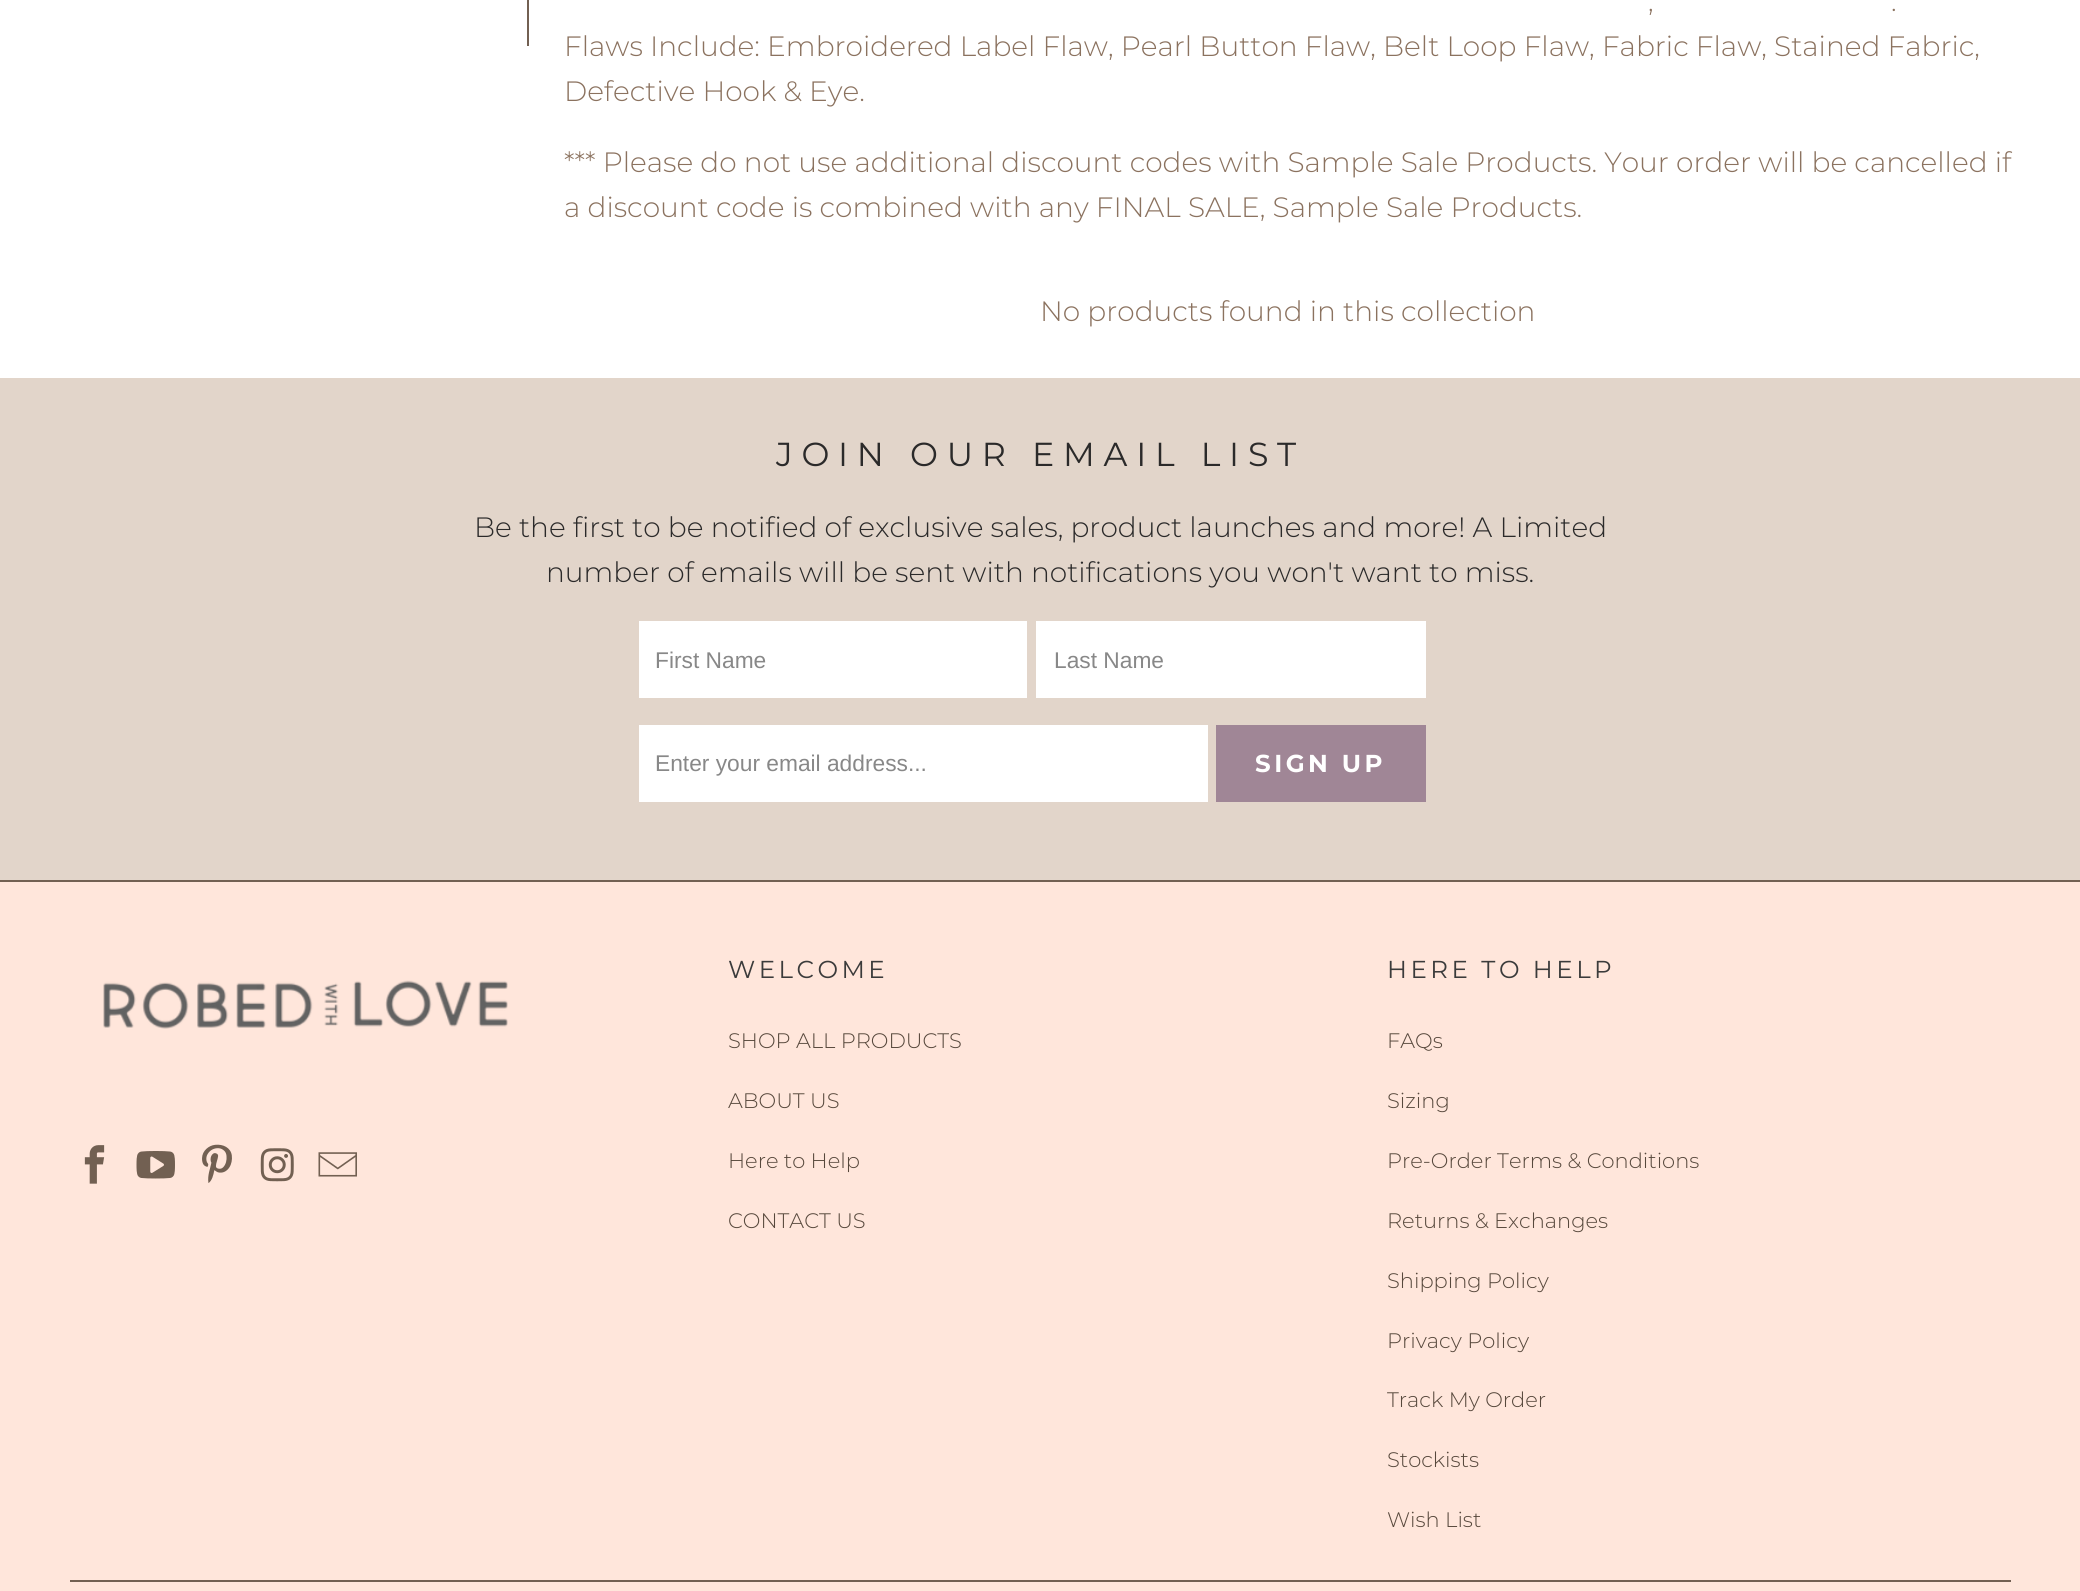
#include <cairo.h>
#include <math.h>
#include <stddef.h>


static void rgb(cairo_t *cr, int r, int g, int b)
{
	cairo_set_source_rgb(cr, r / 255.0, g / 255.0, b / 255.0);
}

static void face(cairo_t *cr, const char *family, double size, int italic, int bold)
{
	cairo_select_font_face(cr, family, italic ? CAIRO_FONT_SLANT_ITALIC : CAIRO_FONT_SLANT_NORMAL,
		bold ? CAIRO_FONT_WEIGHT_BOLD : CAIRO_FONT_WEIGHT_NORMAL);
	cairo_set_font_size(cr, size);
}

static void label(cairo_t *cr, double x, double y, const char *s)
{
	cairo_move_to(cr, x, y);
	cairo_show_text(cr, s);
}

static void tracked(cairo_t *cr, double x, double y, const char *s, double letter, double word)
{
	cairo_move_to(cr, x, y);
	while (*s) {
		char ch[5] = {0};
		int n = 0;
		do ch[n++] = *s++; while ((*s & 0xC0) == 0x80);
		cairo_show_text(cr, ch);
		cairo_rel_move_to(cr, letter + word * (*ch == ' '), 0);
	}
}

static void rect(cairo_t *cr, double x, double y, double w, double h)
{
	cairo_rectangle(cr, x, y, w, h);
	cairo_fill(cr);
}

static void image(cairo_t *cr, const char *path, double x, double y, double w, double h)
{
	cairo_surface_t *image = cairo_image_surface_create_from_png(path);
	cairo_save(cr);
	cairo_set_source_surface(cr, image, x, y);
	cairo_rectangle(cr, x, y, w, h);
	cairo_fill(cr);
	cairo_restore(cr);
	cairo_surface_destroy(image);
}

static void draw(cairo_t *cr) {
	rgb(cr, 255, 255, 255);
	cairo_paint(cr);
	rgb(cr, 114, 96, 82);
	rect(cr, 527, 0, 2, 46);
	face(cr, "Montserrat Light", 28, 0, 0);
	rgb(cr, 139, 114, 95);
	label(cr, 1648, 11, ",");
	label(cr, 1891, 11, ".");
	label(cr, 564, 56, "Flaws Include: Embroidered Label Flaw, Pearl Button Flaw, Belt Loop Flaw, Fabric Flaw, Stained Fabric,");
	label(cr, 564, 101, "Defective Hook & Eye.");
	label(cr, 564, 172, "*** Please do not use additional discount codes with Sample Sale Products. Your order will be cancelled if");
	label(cr, 564, 217, "a discount code is combined with any FINAL SALE, Sample Sale Products.");
	label(cr, 1040, 321, "No products found in this collection");
	rgb(cr, 226, 213, 202);
	rect(cr, 0, 378, 2080, 502);
	face(cr, "Montserrat", 33.25, 0, 0);
	rgb(cr, 43, 42, 42);
	tracked(cr, 776, 466, "JOIN OUR EMAIL LIST", 8.75, 0);
	face(cr, "Montserrat Light", 28, 0, 0);
	label(cr, 474, 537, "Be the first to be notified of exclusive sales, product launches and more! A Limited");
	label(cr, 546, 582, "number of emails will be sent with notifications you won't want to miss.");
	rgb(cr, 255, 255, 255);
	rect(cr, 639, 621, 388, 77);
	face(cr, "Liberation Sans", 22.75, 0, 0);
	rgb(cr, 136, 136, 136);
	label(cr, 655, 668, "First Name");
	rgb(cr, 255, 255, 255);
	rect(cr, 1036, 621, 390, 77);
	rgb(cr, 136, 136, 136);
	label(cr, 1054, 668, "Last Name");
	rgb(cr, 255, 255, 255);
	rect(cr, 639, 725, 569, 77);
	rgb(cr, 136, 136, 136);
	label(cr, 655, 771, "Enter your email address...");
	rgb(cr, 160, 134, 150);
	rect(cr, 1216, 725, 210, 77);
	face(cr, "Montserrat", 24.5, 0, 1);
	rgb(cr, 255, 255, 255);
	tracked(cr, 1255, 772, "SIGN UP", 3.5, 0);
	rgb(cr, 255, 230, 219);
	rect(cr, 0, 882, 2080, 709);
	rgb(cr, 114, 96, 82);
	rect(cr, 0, 880, 2080, 2);
	image(cr, "image0.png", 103, 980, 405, 49);
	image(cr, "image1.png", 84, 1145, 21, 39);
	image(cr, "image2.png", 136, 1151, 39, 28);
	image(cr, "image3.png", 202, 1144, 30, 39);
	image(cr, "image4.png", 260, 1148, 34, 34);
	image(cr, "image5.png", 318, 1152, 39, 25);
	face(cr, "Montserrat", 24.5, 0, 0);
	rgb(cr, 59, 59, 59);
	tracked(cr, 728, 978, "WELCOME", 3.5, 0);
	face(cr, "Montserrat Light", 21, 0, 0);
	rgb(cr, 87, 72, 60);
	label(cr, 728, 1048, "SHOP ALL PRODUCTS");
	label(cr, 728, 1108, "ABOUT US");
	label(cr, 728, 1168, "Here to Help");
	label(cr, 728, 1228, "CONTACT US");
	face(cr, "Montserrat", 24.5, 0, 0);
	rgb(cr, 59, 59, 59);
	tracked(cr, 1387, 978, "HERE TO HELP", 3.5, 0);
	face(cr, "Montserrat Light", 21, 0, 0);
	rgb(cr, 87, 72, 60);
	label(cr, 1387, 1048, "FAQs");
	label(cr, 1387, 1108, "Sizing");
	label(cr, 1387, 1168, "Pre-Order Terms & Conditions");
	label(cr, 1387, 1228, "Returns & Exchanges");
	label(cr, 1387, 1288, "Shipping Policy");
	label(cr, 1387, 1348, "Privacy Policy");
	label(cr, 1387, 1407, "Track My Order");
	label(cr, 1387, 1467, "Stockists");
	label(cr, 1387, 1527, "Wish List");
	rgb(cr, 114, 96, 82);
	rect(cr, 70, 1580, 1941, 2);
}

int main(void) {
	cairo_surface_t *surface = cairo_image_surface_create(CAIRO_FORMAT_RGB24, 2080, 1591);
	cairo_t *cr = cairo_create(surface);
	cairo_font_options_t *options = cairo_font_options_create();
	cairo_font_options_set_hint_metrics(options, CAIRO_HINT_METRICS_OFF);
	cairo_font_options_set_hint_style(options, CAIRO_HINT_STYLE_NONE);
	cairo_set_font_options(cr, options);
	cairo_set_miter_limit(cr, 4);
	draw(cr);
	cairo_surface_write_to_png(surface, "render.png");
	cairo_font_options_destroy(options);
	cairo_destroy(cr);
	cairo_surface_destroy(surface);
	return 0;
}
